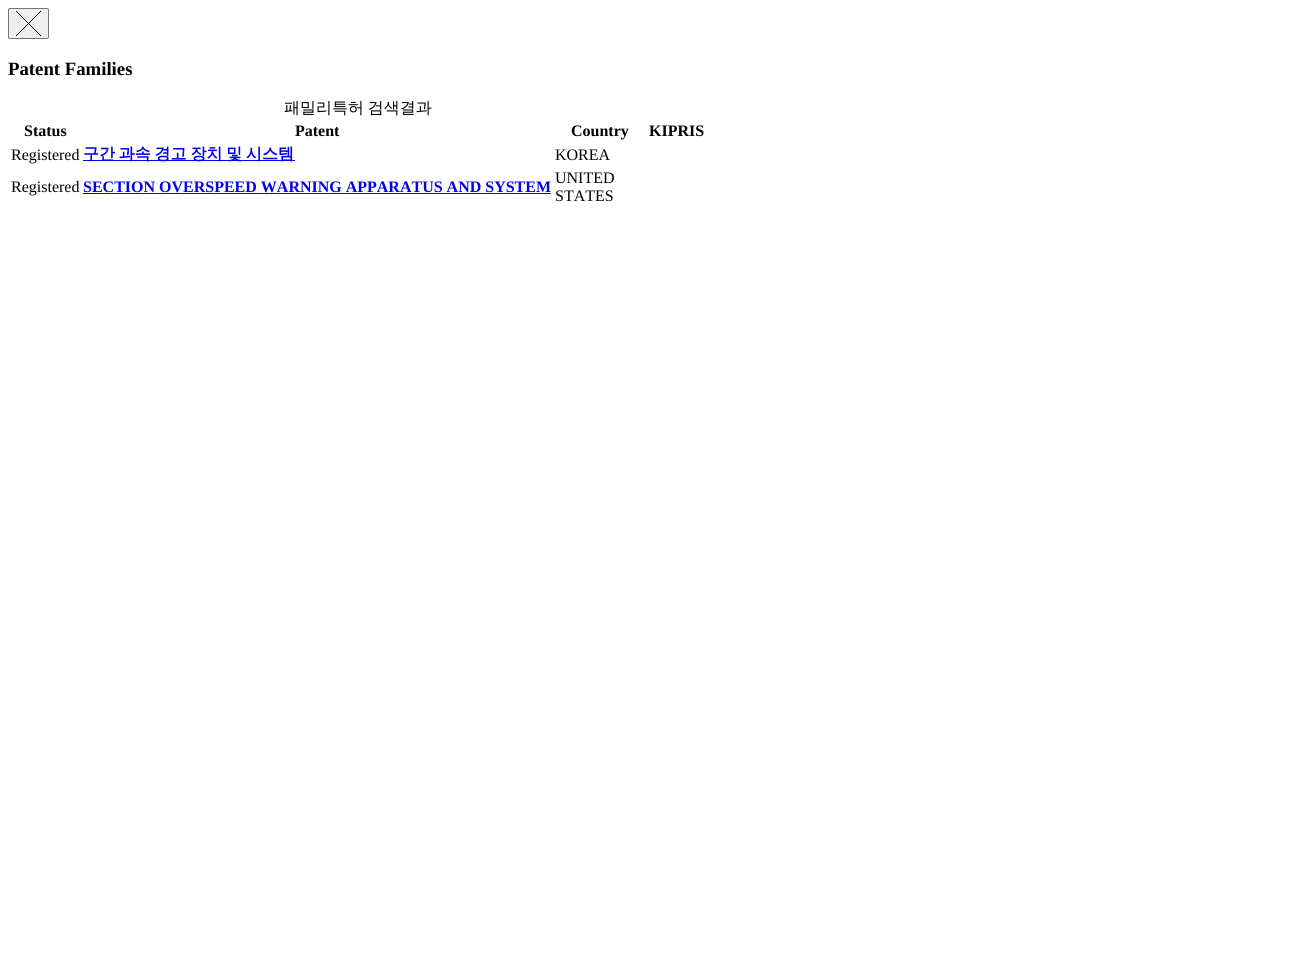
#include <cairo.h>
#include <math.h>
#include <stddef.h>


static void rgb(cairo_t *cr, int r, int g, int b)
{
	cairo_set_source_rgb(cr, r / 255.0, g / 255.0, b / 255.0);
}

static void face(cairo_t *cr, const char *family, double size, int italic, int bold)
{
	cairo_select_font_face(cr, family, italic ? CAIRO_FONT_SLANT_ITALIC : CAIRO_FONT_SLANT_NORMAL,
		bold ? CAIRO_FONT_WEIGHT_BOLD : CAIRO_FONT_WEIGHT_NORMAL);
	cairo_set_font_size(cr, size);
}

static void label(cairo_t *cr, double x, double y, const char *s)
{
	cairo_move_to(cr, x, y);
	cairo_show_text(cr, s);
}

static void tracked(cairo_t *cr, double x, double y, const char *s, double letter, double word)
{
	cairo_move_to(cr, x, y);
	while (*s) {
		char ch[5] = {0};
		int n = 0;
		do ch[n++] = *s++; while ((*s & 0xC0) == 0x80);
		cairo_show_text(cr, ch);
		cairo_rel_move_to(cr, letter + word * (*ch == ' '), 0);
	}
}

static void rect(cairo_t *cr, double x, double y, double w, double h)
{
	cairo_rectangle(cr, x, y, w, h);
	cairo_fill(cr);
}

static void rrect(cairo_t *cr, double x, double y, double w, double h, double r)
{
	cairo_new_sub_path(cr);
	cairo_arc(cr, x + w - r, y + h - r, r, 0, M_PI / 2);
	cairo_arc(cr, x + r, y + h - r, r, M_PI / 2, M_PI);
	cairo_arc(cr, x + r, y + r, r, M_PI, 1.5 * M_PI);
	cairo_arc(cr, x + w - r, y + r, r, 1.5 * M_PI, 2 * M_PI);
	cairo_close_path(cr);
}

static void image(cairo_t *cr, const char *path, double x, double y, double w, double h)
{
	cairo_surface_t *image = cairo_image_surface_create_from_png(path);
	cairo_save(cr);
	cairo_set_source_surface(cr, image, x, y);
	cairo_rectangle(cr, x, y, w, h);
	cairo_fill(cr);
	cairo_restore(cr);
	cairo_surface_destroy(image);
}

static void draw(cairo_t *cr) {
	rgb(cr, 255, 255, 255);
	cairo_paint(cr);
	rgb(cr, 239, 239, 239);
	rrect(cr, 8.5, 8.5, 40, 30, 1.5);
	cairo_fill_preserve(cr);
	rgb(cr, 118, 118, 118);
	cairo_set_line_width(cr, 1);
	cairo_stroke(cr);
	image(cr, "image0.png", 16, 11, 25, 25);
	face(cr, "Liberation Serif", 18.75, 0, 1);
	rgb(cr, 0, 0, 0);
	label(cr, 8, 75, "Patent Families");
	face(cr, "WenQuanYi Zen Hei Medium", 16, 0, 0);
	tracked(cr, 284, 113, "패밀리특허 검색결과", 0, -1);
	face(cr, "Liberation Serif", 16, 0, 1);
	label(cr, 24, 136, "Status");
	label(cr, 295, 136, "Patent");
	label(cr, 571, 136, "Country");
	label(cr, 649, 136, "KIPRIS");
	face(cr, "Liberation Serif", 16, 0, 0);
	label(cr, 11, 160, "Registered");
	rgb(cr, 0, 0, 238);
	rect(cr, 83, 160, 212, 1);
	face(cr, "WenQuanYi Zen Hei", 16, 0, 1);
	tracked(cr, 83, 159, "구간 과속 경고 장치 및 시스템", 0, -1);
	face(cr, "Liberation Serif", 16, 0, 0);
	rgb(cr, 0, 0, 0);
	label(cr, 555, 160, "KOREA");
	label(cr, 11, 192, "Registered");
	face(cr, "Liberation Serif", 16, 0, 1);
	rgb(cr, 0, 0, 238);
	label(cr, 83, 192, "SECTION OVERSPEED WARNING APPARATUS AND SYSTEM");
	rect(cr, 83, 193, 468, 1);
	face(cr, "Liberation Serif", 16, 0, 0);
	rgb(cr, 0, 0, 0);
	label(cr, 555, 183, "UNITED");
	label(cr, 555, 201, "STATES");
}

int main(void) {
	cairo_surface_t *surface = cairo_image_surface_create(CAIRO_FORMAT_RGB24, 1298, 976);
	cairo_t *cr = cairo_create(surface);
	cairo_font_options_t *options = cairo_font_options_create();
	cairo_font_options_set_hint_metrics(options, CAIRO_HINT_METRICS_OFF);
	cairo_font_options_set_hint_style(options, CAIRO_HINT_STYLE_NONE);
	cairo_set_font_options(cr, options);
	cairo_set_miter_limit(cr, 4);
	draw(cr);
	cairo_surface_write_to_png(surface, "render.png");
	cairo_font_options_destroy(options);
	cairo_destroy(cr);
	cairo_surface_destroy(surface);
	return 0;
}
